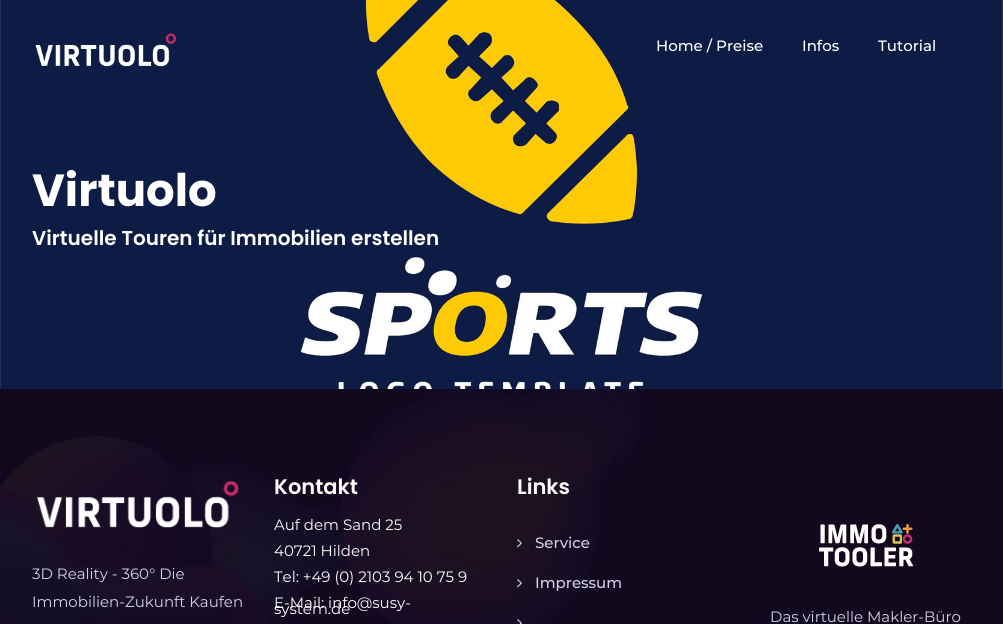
#include <cairo.h>
#include <math.h>
#include <stddef.h>


static void rgb(cairo_t *cr, int r, int g, int b)
{
	cairo_set_source_rgb(cr, r / 255.0, g / 255.0, b / 255.0);
}

static void face(cairo_t *cr, const char *family, double size, int italic, int bold)
{
	cairo_select_font_face(cr, family, italic ? CAIRO_FONT_SLANT_ITALIC : CAIRO_FONT_SLANT_NORMAL,
		bold ? CAIRO_FONT_WEIGHT_BOLD : CAIRO_FONT_WEIGHT_NORMAL);
	cairo_set_font_size(cr, size);
}

static void label(cairo_t *cr, double x, double y, const char *s)
{
	cairo_move_to(cr, x, y);
	cairo_show_text(cr, s);
}

static void image(cairo_t *cr, const char *path, double x, double y, double w, double h)
{
	cairo_surface_t *image = cairo_image_surface_create_from_png(path);
	cairo_save(cr);
	cairo_set_source_surface(cr, image, x, y);
	cairo_rectangle(cr, x, y, w, h);
	cairo_fill(cr);
	cairo_restore(cr);
	cairo_surface_destroy(image);
}

static void draw(cairo_t *cr) {
	rgb(cr, 255, 255, 255);
	cairo_paint(cr);
	image(cr, "image1.png", 0, 0, 1003, 389);
	image(cr, "image0.png", 35, 33, 141, 34);
	face(cr, "Montserrat Medium", 15, 0, 0);
	rgb(cr, 255, 255, 255);
	label(cr, 656, 51, "Home / Preise");
	label(cr, 802, 51, "Infos");
	label(cr, 878, 51, "Tutorial");
	face(cr, "Poppins", 45, 0, 1);
	label(cr, 32, 206, "Virtuolo");
	face(cr, "Poppins SemiBold", 20, 0, 0);
	label(cr, 32, 245, "Virtuelle Touren für Immobilien erstellen");
	image(cr, "image2.png", 0, 389, 1003, 235);
	image(cr, "image3.png", 36, 481, 203, 47);
	face(cr, "Montserrat", 15, 0, 0);
	rgb(cr, 207, 211, 229);
	label(cr, 32, 579, "3D Reality - 360° Die");
	label(cr, 32, 607, "Immobilien-Zukunft Kaufen");
	face(cr, "Poppins SemiBold", 21, 0, 0);
	rgb(cr, 255, 255, 255);
	label(cr, 274, 494, "Kontakt");
	face(cr, "Montserrat", 15, 0, 0);
	label(cr, 274, 530, "Auf dem Sand 25");
	label(cr, 274, 556, "40721 Hilden");
	label(cr, 274, 582, "Tel: +49 (0) 2103 94 10 75 9");
	label(cr, 274, 608, "E-Mail: info@susy-");
	label(cr, 274, 614, "system.de");
	face(cr, "Poppins SemiBold", 21, 0, 0);
	label(cr, 517, 494, "Links");
	image(cr, "image4.png", 517, 539, 5, 9);
	face(cr, "Montserrat Medium", 15, 0, 0);
	rgb(cr, 207, 211, 229);
	label(cr, 535, 548, "Service");
	image(cr, "image5.png", 517, 579, 5, 9);
	label(cr, 535, 588, "Impressum");
	image(cr, "image6.png", 517, 619, 5, 5);
	image(cr, "image7.png", 819, 524, 94, 43);
	face(cr, "Montserrat", 15, 0, 0);
	label(cr, 770, 622, "Das virtuelle Makler-Büro");
}

int main(void) {
	cairo_surface_t *surface = cairo_image_surface_create(CAIRO_FORMAT_RGB24, 1003, 624);
	cairo_t *cr = cairo_create(surface);
	cairo_font_options_t *options = cairo_font_options_create();
	cairo_font_options_set_hint_metrics(options, CAIRO_HINT_METRICS_OFF);
	cairo_font_options_set_hint_style(options, CAIRO_HINT_STYLE_NONE);
	cairo_set_font_options(cr, options);
	cairo_set_miter_limit(cr, 4);
	draw(cr);
	cairo_surface_write_to_png(surface, "render.png");
	cairo_font_options_destroy(options);
	cairo_destroy(cr);
	cairo_surface_destroy(surface);
	return 0;
}
